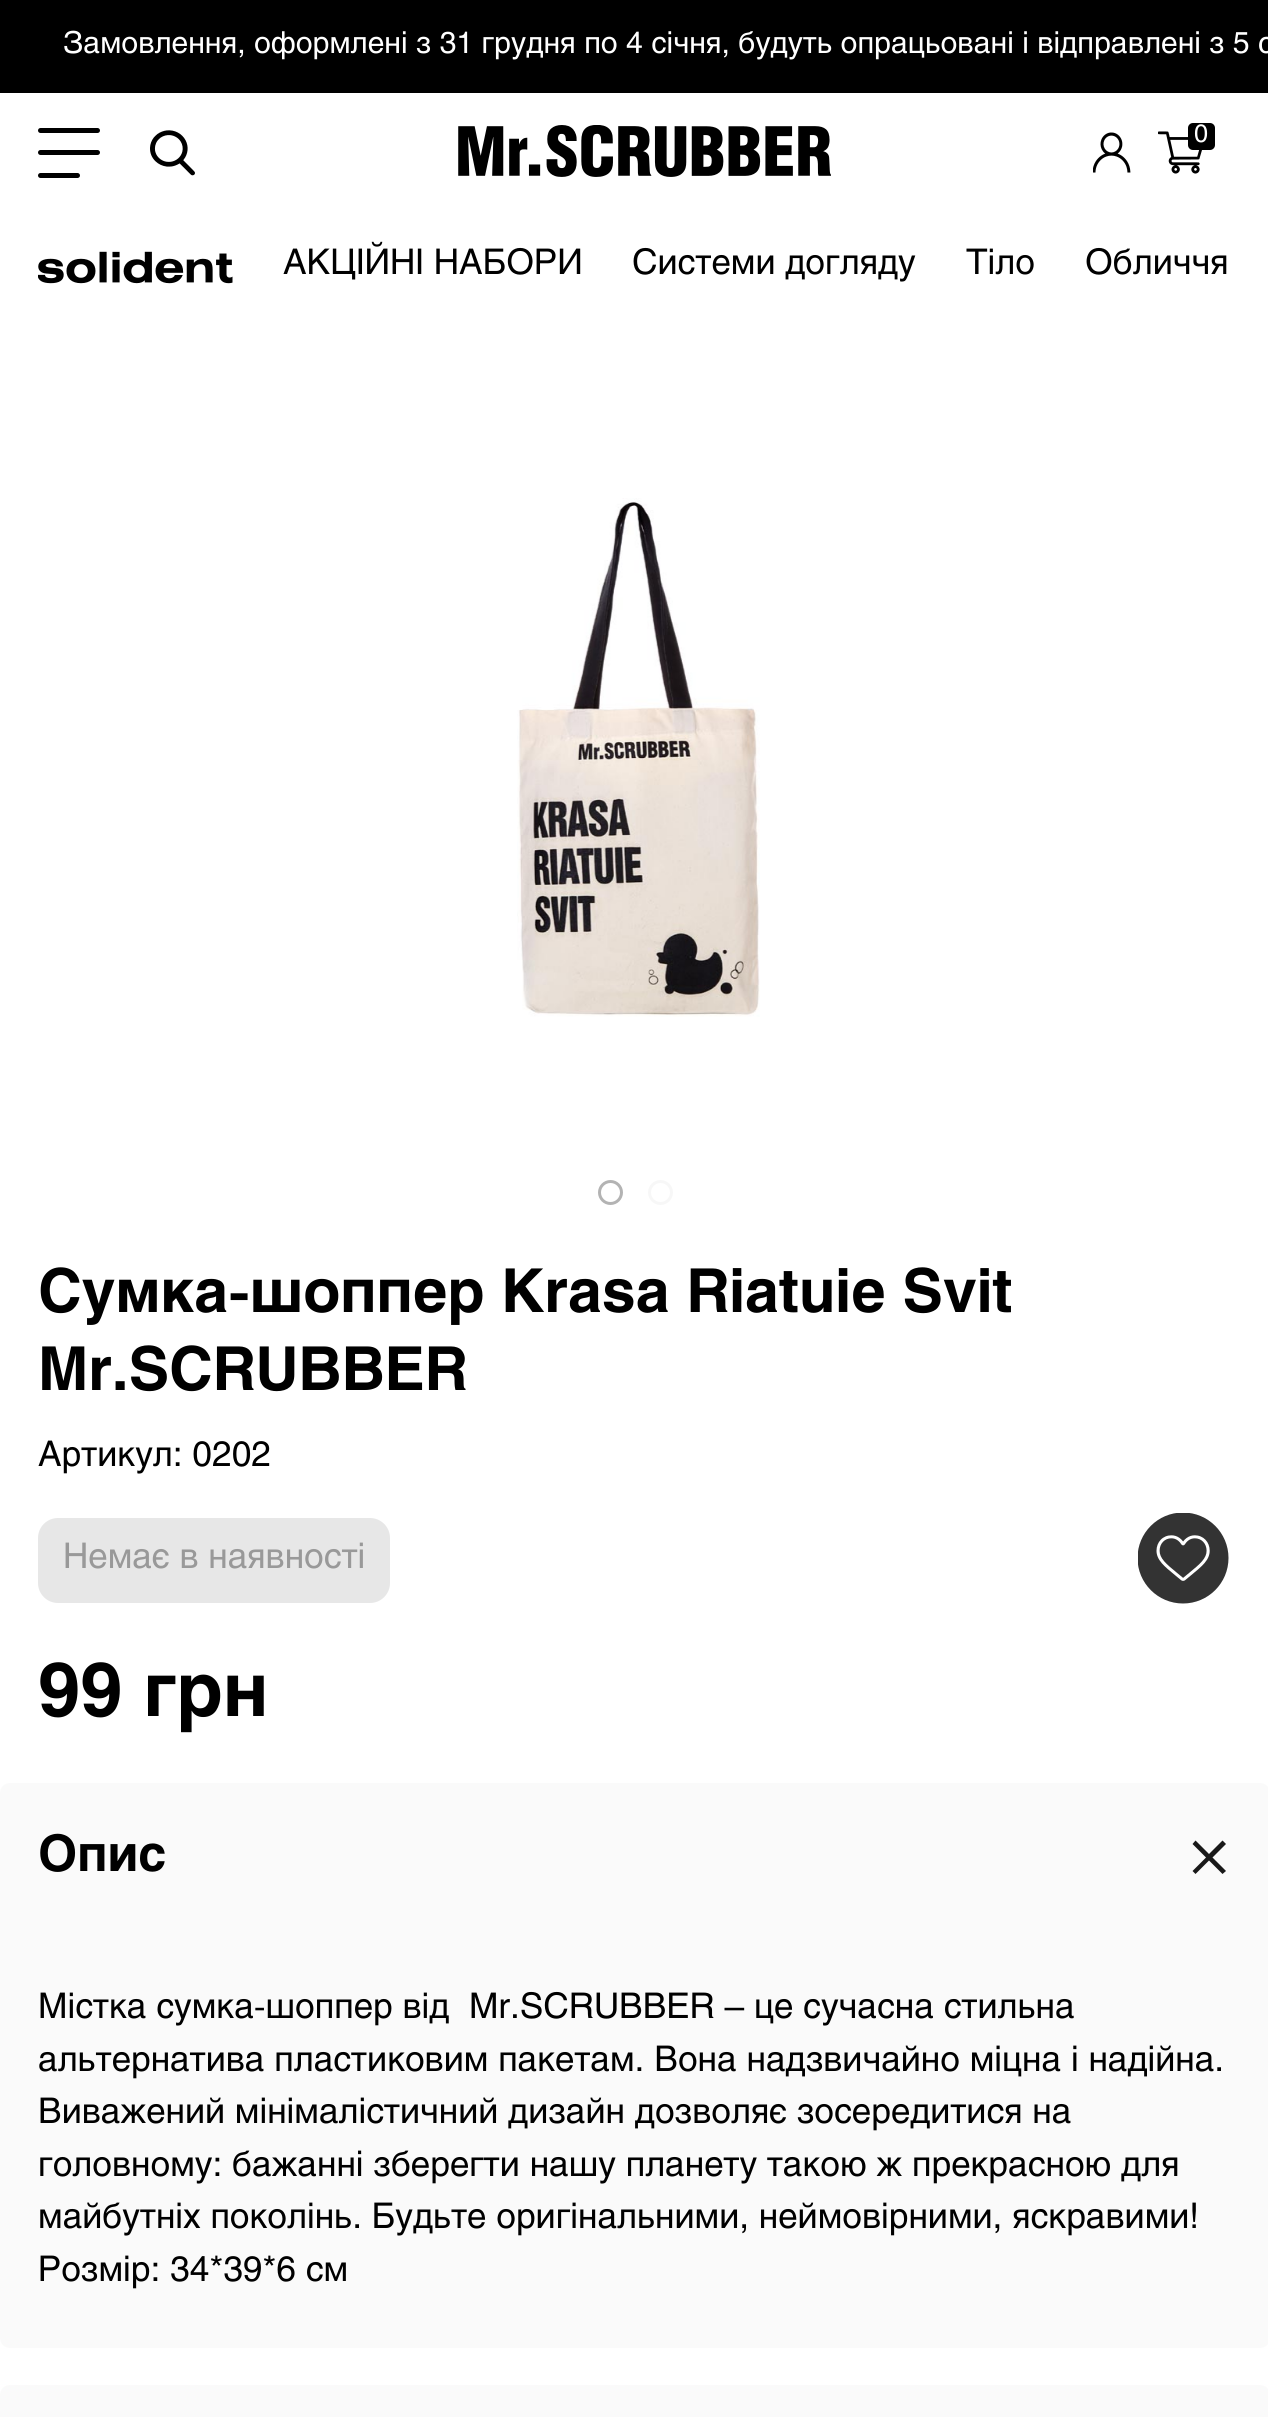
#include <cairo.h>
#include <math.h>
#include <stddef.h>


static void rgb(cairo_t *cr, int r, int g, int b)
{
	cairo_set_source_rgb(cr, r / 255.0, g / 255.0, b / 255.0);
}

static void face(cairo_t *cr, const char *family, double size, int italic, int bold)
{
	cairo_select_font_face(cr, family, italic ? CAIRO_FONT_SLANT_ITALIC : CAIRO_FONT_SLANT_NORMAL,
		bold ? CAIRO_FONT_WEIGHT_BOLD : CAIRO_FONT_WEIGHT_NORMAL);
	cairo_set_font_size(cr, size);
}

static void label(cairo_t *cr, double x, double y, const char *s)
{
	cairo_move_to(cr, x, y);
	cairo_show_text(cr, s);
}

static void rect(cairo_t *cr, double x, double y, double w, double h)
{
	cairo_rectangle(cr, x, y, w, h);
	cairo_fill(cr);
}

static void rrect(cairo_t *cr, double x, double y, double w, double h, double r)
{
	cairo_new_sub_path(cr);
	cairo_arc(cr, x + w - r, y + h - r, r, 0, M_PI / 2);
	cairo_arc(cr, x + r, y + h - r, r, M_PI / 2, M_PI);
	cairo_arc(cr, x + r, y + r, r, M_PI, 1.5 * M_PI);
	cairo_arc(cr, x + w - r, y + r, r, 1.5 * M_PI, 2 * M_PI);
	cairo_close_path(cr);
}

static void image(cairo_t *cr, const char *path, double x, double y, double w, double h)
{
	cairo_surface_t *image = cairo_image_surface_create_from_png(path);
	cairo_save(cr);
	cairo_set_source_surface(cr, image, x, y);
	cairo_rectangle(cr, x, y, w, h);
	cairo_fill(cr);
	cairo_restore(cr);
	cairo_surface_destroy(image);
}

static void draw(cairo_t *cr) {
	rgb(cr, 255, 255, 255);
	cairo_paint(cr);
	rgb(cr, 0, 0, 0);
	rect(cr, 0, 0, 1268, 93);
	face(cr, "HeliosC", 30, 0, 0);
	rgb(cr, 255, 255, 255);
	label(cr, 63, 53, "Замовлення, оформлені з 31 грудня по 4 січня, будуть опрацьовані і відправлені з 5 с");
	rgb(cr, 0, 0, 0);
	rrect(cr, 38, 128, 62, 5, 2.5);
	cairo_fill(cr);
	rrect(cr, 38, 150, 62, 5, 2.5);
	cairo_fill(cr);
	rrect(cr, 38, 173, 42, 5, 2.5);
	cairo_fill(cr);
	image(cr, "image0.png", 150, 130, 45, 46);
	image(cr, "image1.png", 458, 125, 373, 52);
	image(cr, "image2.png", 1093, 132, 38, 41);
	image(cr, "image3.png", 1158, 131, 44, 43);
	rrect(cr, 1188, 123, 27, 27, 5);
	cairo_fill(cr);
	face(cr, "HeliosC", 25, 0, 0);
	rgb(cr, 255, 255, 255);
	label(cr, 1194, 142, "0");
	image(cr, "image4.png", 38, 251, 195, 33);
	face(cr, "HeliosC", 35, 0, 0);
	rgb(cr, 0, 0, 0);
	label(cr, 283, 274, "АКЦІЙНІ НАБОРИ");
	label(cr, 632, 274, "Системи догляду");
	label(cr, 966, 274, "Тіло");
	label(cr, 1085, 274, "Обличчя");
	image(cr, "image5.png", 517, 498, 243, 519);
	cairo_arc(cr, 610.5, 1192.5, 11, 0, 2 * M_PI);
	rgb(cr, 179, 179, 179);
	cairo_set_line_width(cr, 3);
	cairo_stroke(cr);
	cairo_arc(cr, 660.5, 1192.5, 11, 0, 2 * M_PI);
	rgb(cr, 247, 247, 247);
	cairo_stroke(cr);
	face(cr, "HeliosC", 60, 0, 1);
	rgb(cr, 0, 0, 0);
	label(cr, 38, 1312, "Сумка-шоппер Krasa Riatuie Svit");
	label(cr, 38, 1390, "Mr.SCRUBBER");
	face(cr, "HeliosC", 35, 0, 0);
	label(cr, 38, 1466, "Артикул: 0202");
	rgb(cr, 231, 231, 231);
	rrect(cr, 38, 1518, 352, 85, 20);
	cairo_fill(cr);
	rgb(cr, 153, 153, 153);
	label(cr, 63, 1568, "Немає в наявності");
	image(cr, "image6.png", 1138, 1513, 91, 91);
	face(cr, "HeliosC", 75, 0, 1);
	rgb(cr, 0, 0, 0);
	label(cr, 38, 1716, "99 грн");
	rgb(cr, 250, 250, 250);
	rrect(cr, 0, 1783, 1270, 565, 10);
	cairo_fill(cr);
	face(cr, "HeliosC", 50, 0, 1);
	rgb(cr, 0, 0, 0);
	label(cr, 38, 1871, "Опис");
	rgb(cr, 25, 25, 25);
	cairo_set_fill_rule(cr, CAIRO_FILL_RULE_EVEN_ODD);
	cairo_new_path(cr);
	cairo_move_to(cr, 1222.5, 1874);
	cairo_line_to(cr, 1209, 1860.5);
	cairo_line_to(cr, 1195.5, 1874);
	cairo_line_to(cr, 1192.5, 1871);
	cairo_line_to(cr, 1206, 1857.5);
	cairo_line_to(cr, 1192.5, 1844);
	cairo_line_to(cr, 1195.5, 1840.5);
	cairo_line_to(cr, 1209, 1854);
	cairo_line_to(cr, 1222.5, 1840.5);
	cairo_line_to(cr, 1226, 1844);
	cairo_line_to(cr, 1212.5, 1857.5);
	cairo_line_to(cr, 1226, 1871);
	cairo_close_path(cr);
	cairo_fill(cr);
	face(cr, "HeliosC", 35, 0, 0);
	rgb(cr, 0, 0, 0);
	label(cr, 38, 2018, "Містка сумка-шоппер від  Mr.SCRUBBER – це сучасна стильна");
	label(cr, 38, 2071, "альтернатива пластиковим пакетам. Вона надзвичайно міцна і надійна.");
	label(cr, 38, 2123, "Виважений мінімалістичний дизайн дозволяє зосередитися на");
	label(cr, 38, 2176, "головному: бажанні зберегти нашу планету такою ж прекрасною для");
	label(cr, 38, 2228, "майбутніх поколінь. Будьте оригінальними, неймовірними, яскравими!");
	label(cr, 38, 2281, "Розмір: 34*39*6 см");
	rgb(cr, 250, 250, 250);
	rrect(cr, 0, 2385, 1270, 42, 10);
	cairo_fill(cr);
}

int main(void) {
	cairo_surface_t *surface = cairo_image_surface_create(CAIRO_FORMAT_RGB24, 1268, 2417);
	cairo_t *cr = cairo_create(surface);
	cairo_font_options_t *options = cairo_font_options_create();
	cairo_font_options_set_hint_metrics(options, CAIRO_HINT_METRICS_OFF);
	cairo_font_options_set_hint_style(options, CAIRO_HINT_STYLE_NONE);
	cairo_set_font_options(cr, options);
	cairo_set_miter_limit(cr, 4);
	draw(cr);
	cairo_surface_write_to_png(surface, "render.png");
	cairo_font_options_destroy(options);
	cairo_destroy(cr);
	cairo_surface_destroy(surface);
	return 0;
}
